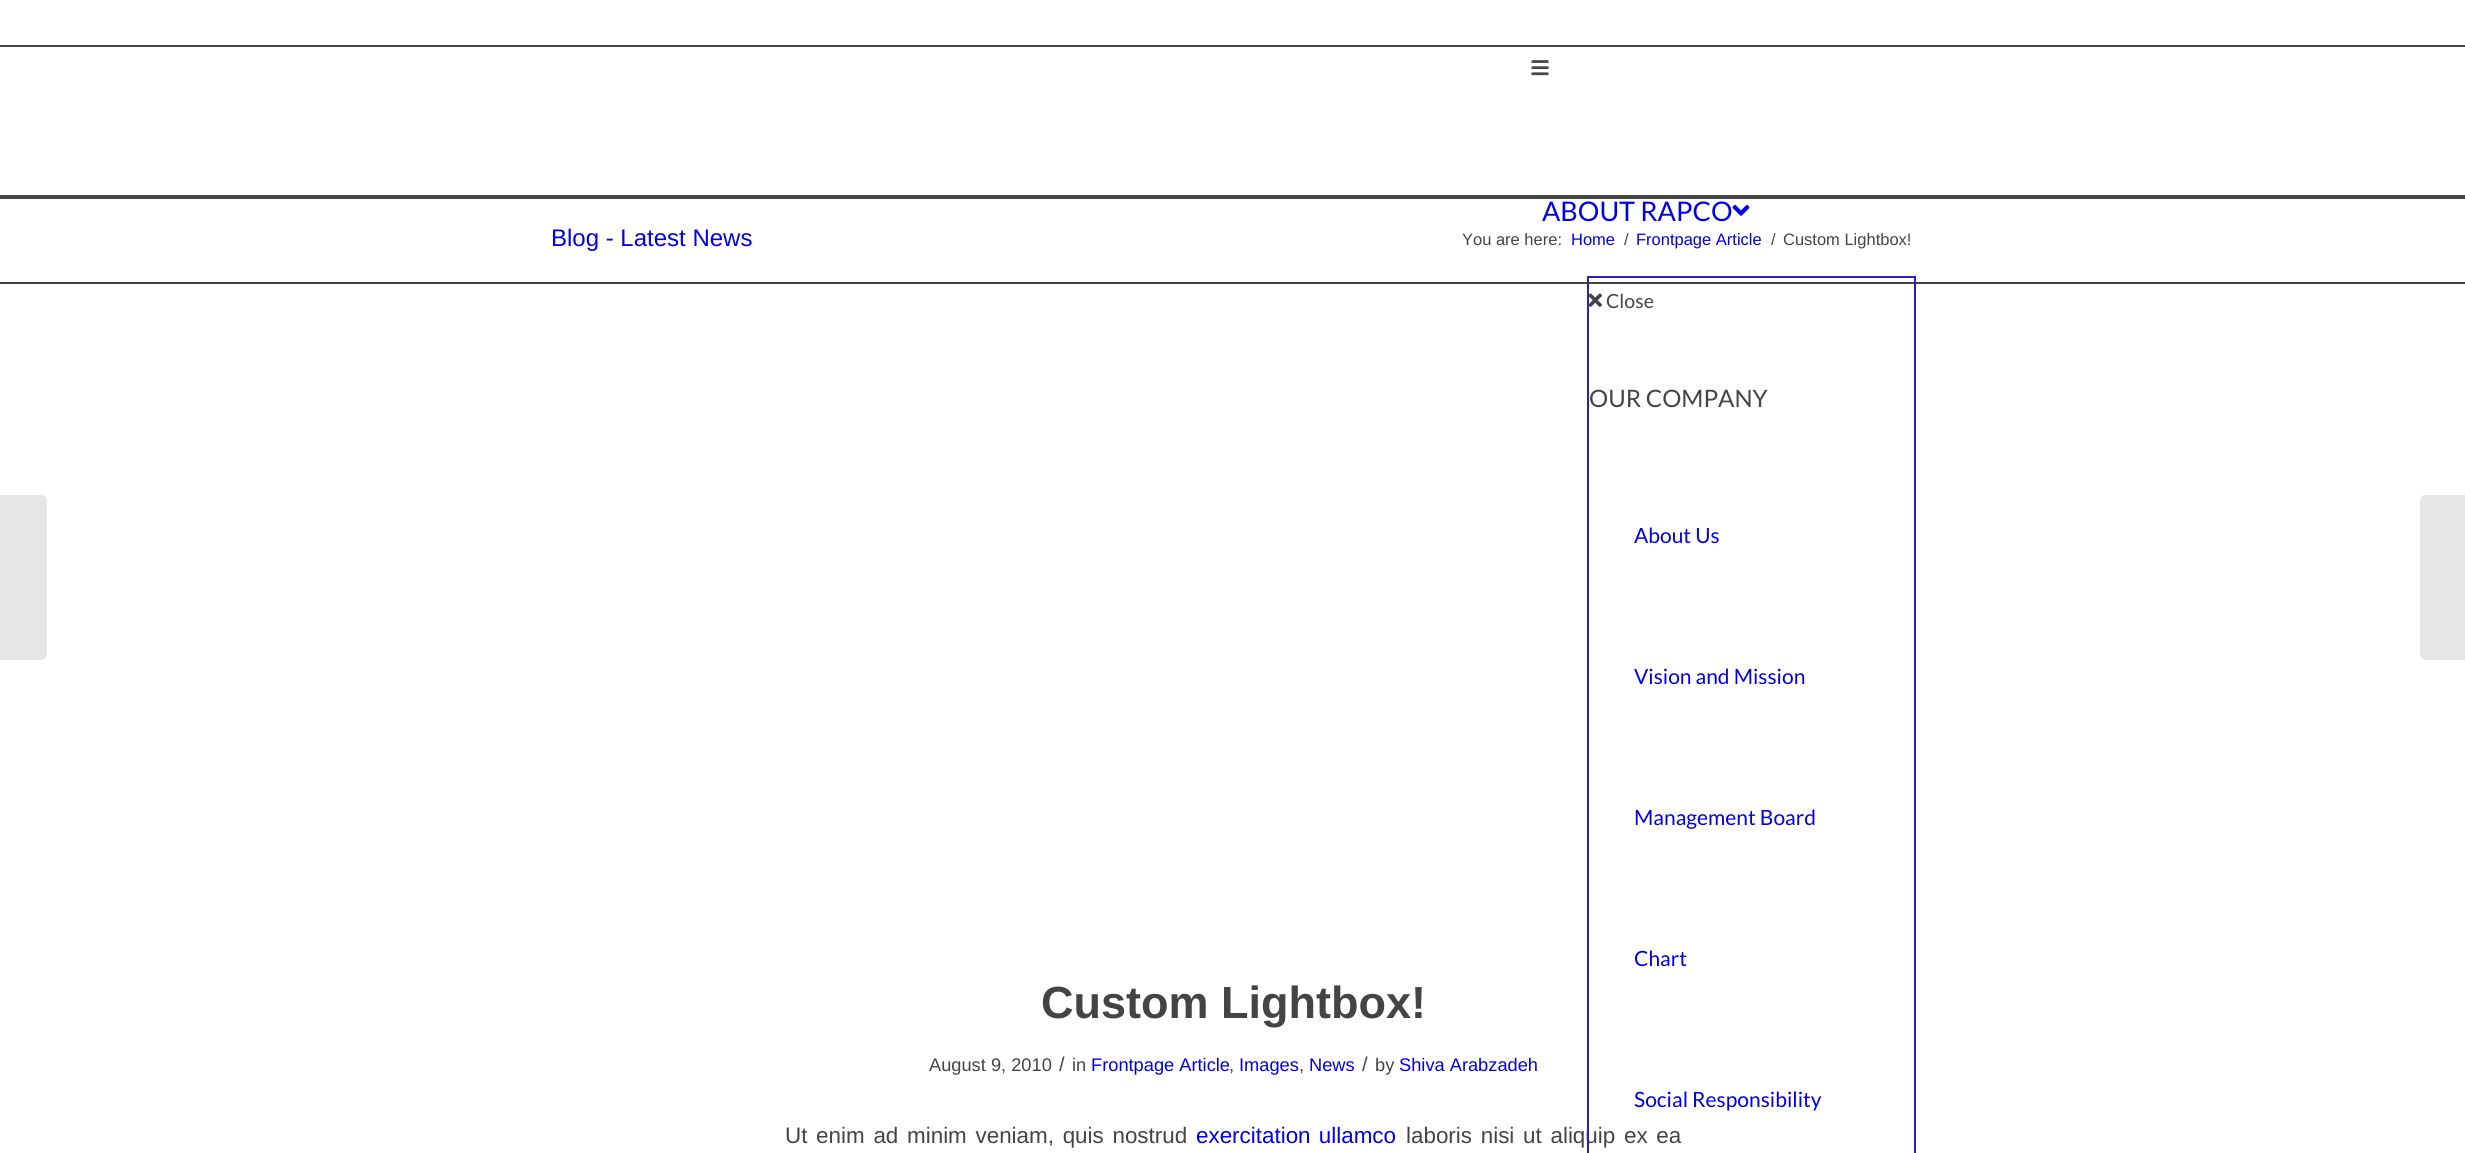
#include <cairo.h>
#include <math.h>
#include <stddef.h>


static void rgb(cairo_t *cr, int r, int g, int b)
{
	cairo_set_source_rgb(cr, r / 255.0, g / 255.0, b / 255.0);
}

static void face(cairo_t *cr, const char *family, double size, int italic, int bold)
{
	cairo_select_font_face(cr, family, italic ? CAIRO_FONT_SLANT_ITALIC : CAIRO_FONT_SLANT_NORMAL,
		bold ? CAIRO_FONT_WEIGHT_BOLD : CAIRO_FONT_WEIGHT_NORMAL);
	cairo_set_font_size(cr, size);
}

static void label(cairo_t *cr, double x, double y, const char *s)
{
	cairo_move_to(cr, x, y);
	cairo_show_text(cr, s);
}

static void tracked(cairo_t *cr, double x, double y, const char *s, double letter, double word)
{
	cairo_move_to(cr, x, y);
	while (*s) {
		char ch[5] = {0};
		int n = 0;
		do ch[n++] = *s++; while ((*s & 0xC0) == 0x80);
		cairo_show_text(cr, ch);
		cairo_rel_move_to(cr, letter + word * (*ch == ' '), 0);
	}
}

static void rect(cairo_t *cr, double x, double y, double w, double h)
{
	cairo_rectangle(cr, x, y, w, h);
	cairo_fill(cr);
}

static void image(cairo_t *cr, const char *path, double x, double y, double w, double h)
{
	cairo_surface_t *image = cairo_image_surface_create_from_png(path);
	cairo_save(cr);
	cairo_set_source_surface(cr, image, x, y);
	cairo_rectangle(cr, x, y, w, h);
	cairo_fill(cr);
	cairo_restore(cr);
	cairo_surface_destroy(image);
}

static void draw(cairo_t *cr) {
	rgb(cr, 255, 255, 255);
	cairo_paint(cr);
	rgb(cr, 68, 68, 68);
	rect(cr, 0, 45, 2465, 2);
	image(cr, "image0.png", 1531, 60, 18, 16);
	face(cr, "Lato", 27, 0, 0);
	rgb(cr, 0, 0, 238);
	label(cr, 1542, 221, "ABOUT RAPCO");
	image(cr, "image1.png", 1732, 205, 18, 11);
	rgb(cr, 68, 68, 68);
	rect(cr, 0, 282, 2465, 2);
	face(cr, "Liberation Sans", 22.4, 0, 0);
	tracked(cr, 1406, 1143, "laboris nisi ut aliquip ex ea", 0, 2.5);
	cairo_rectangle(cr, 1588, 277, 327, 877);
	rgb(cr, 42, 31, 198);
	cairo_stroke(cr);
	image(cr, "image2.png", 1588, 293, 14, 14);
	face(cr, "Lato", 19.5, 0, 0);
	rgb(cr, 68, 68, 68);
	label(cr, 1606, 308, "Close");
	face(cr, "Lato", 24, 0, 0);
	label(cr, 1589, 407, "OUR COMPANY");
	face(cr, "Lato", 21, 0, 0);
	rgb(cr, 0, 0, 238);
	label(cr, 1634, 543, "About Us");
	label(cr, 1634, 684, "Vision and Mission");
	label(cr, 1634, 825, "Management Board");
	label(cr, 1634, 966, "Chart");
	label(cr, 1634, 1107, "Social Responsibility");
	rgb(cr, 230, 230, 230);
	cairo_new_path(cr);
	cairo_move_to(cr, 0, 495);
	cairo_line_to(cr, 41, 495);
	cairo_curve_to(cr, 44.5, 495, 47, 497.5, 47, 501);
	cairo_line_to(cr, 47, 654);
	cairo_curve_to(cr, 47, 657.5, 44.5, 660, 41, 660);
	cairo_line_to(cr, 0, 660);
	cairo_close_path(cr);
	cairo_fill(cr);
	rgb(cr, 68, 68, 68);
	rect(cr, 0, 195, 2465, 4);
	face(cr, "Liberation Sans", 24, 0, 0);
	rgb(cr, 0, 0, 238);
	label(cr, 551, 246, "Blog - Latest News");
	face(cr, "Liberation Sans", 16.5, 0, 0);
	rgb(cr, 68, 68, 68);
	label(cr, 1462, 245, "You are here:");
	rgb(cr, 0, 0, 238);
	label(cr, 1571, 245, "Home");
	rgb(cr, 68, 68, 68);
	label(cr, 1624, 245, "/");
	rgb(cr, 0, 0, 238);
	label(cr, 1636, 245, "Frontpage Article");
	rgb(cr, 68, 68, 68);
	label(cr, 1771, 245, "/");
	label(cr, 1783, 245, "Custom Lightbox!");
	face(cr, "Liberation Sans", 45, 0, 1);
	label(cr, 1041, 1018, "Custom Lightbox!");
	face(cr, "Liberation Sans", 18.25, 0, 0);
	label(cr, 929, 1071, "August 9, 2010");
	face(cr, "Liberation Sans", 20, 0, 0);
	label(cr, 1059, 1071, "/");
	face(cr, "Liberation Sans", 18.25, 0, 0);
	label(cr, 1072, 1071, "in");
	rgb(cr, 0, 0, 238);
	label(cr, 1091, 1071, "Frontpage Article");
	rgb(cr, 68, 68, 68);
	label(cr, 1229, 1071, ",");
	rgb(cr, 0, 0, 238);
	label(cr, 1239, 1071, "Images");
	rgb(cr, 68, 68, 68);
	label(cr, 1299, 1071, ",");
	rgb(cr, 0, 0, 238);
	label(cr, 1309, 1071, "News");
	face(cr, "Liberation Sans", 20, 0, 0);
	rgb(cr, 68, 68, 68);
	label(cr, 1362, 1071, "/");
	face(cr, "Liberation Sans", 18.25, 0, 0);
	label(cr, 1375, 1071, "by");
	rgb(cr, 0, 0, 238);
	label(cr, 1399, 1071, "Shiva Arabzadeh");
	face(cr, "Liberation Sans", 22.4, 0, 0);
	rgb(cr, 68, 68, 68);
	tracked(cr, 785, 1143, "Ut enim ad minim veniam, quis nostrud", 0, 2.5);
	rgb(cr, 0, 0, 238);
	tracked(cr, 1196, 1143, "exercitation ullamco", 0, 2);
	rgb(cr, 230, 230, 230);
	cairo_new_path(cr);
	cairo_move_to(cr, 2426, 495);
	cairo_line_to(cr, 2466, 495);
	cairo_line_to(cr, 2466, 660);
	cairo_line_to(cr, 2426, 660);
	cairo_curve_to(cr, 2422.5, 660, 2420, 657.5, 2420, 654);
	cairo_line_to(cr, 2420, 501);
	cairo_curve_to(cr, 2420, 497.5, 2422.5, 495, 2426, 495);
	cairo_close_path(cr);
	cairo_fill(cr);
}

int main(void) {
	cairo_surface_t *surface = cairo_image_surface_create(CAIRO_FORMAT_RGB24, 2465, 1153);
	cairo_t *cr = cairo_create(surface);
	cairo_font_options_t *options = cairo_font_options_create();
	cairo_font_options_set_hint_metrics(options, CAIRO_HINT_METRICS_OFF);
	cairo_font_options_set_hint_style(options, CAIRO_HINT_STYLE_NONE);
	cairo_set_font_options(cr, options);
	cairo_set_miter_limit(cr, 4);
	draw(cr);
	cairo_surface_write_to_png(surface, "render.png");
	cairo_font_options_destroy(options);
	cairo_destroy(cr);
	cairo_surface_destroy(surface);
	return 0;
}
